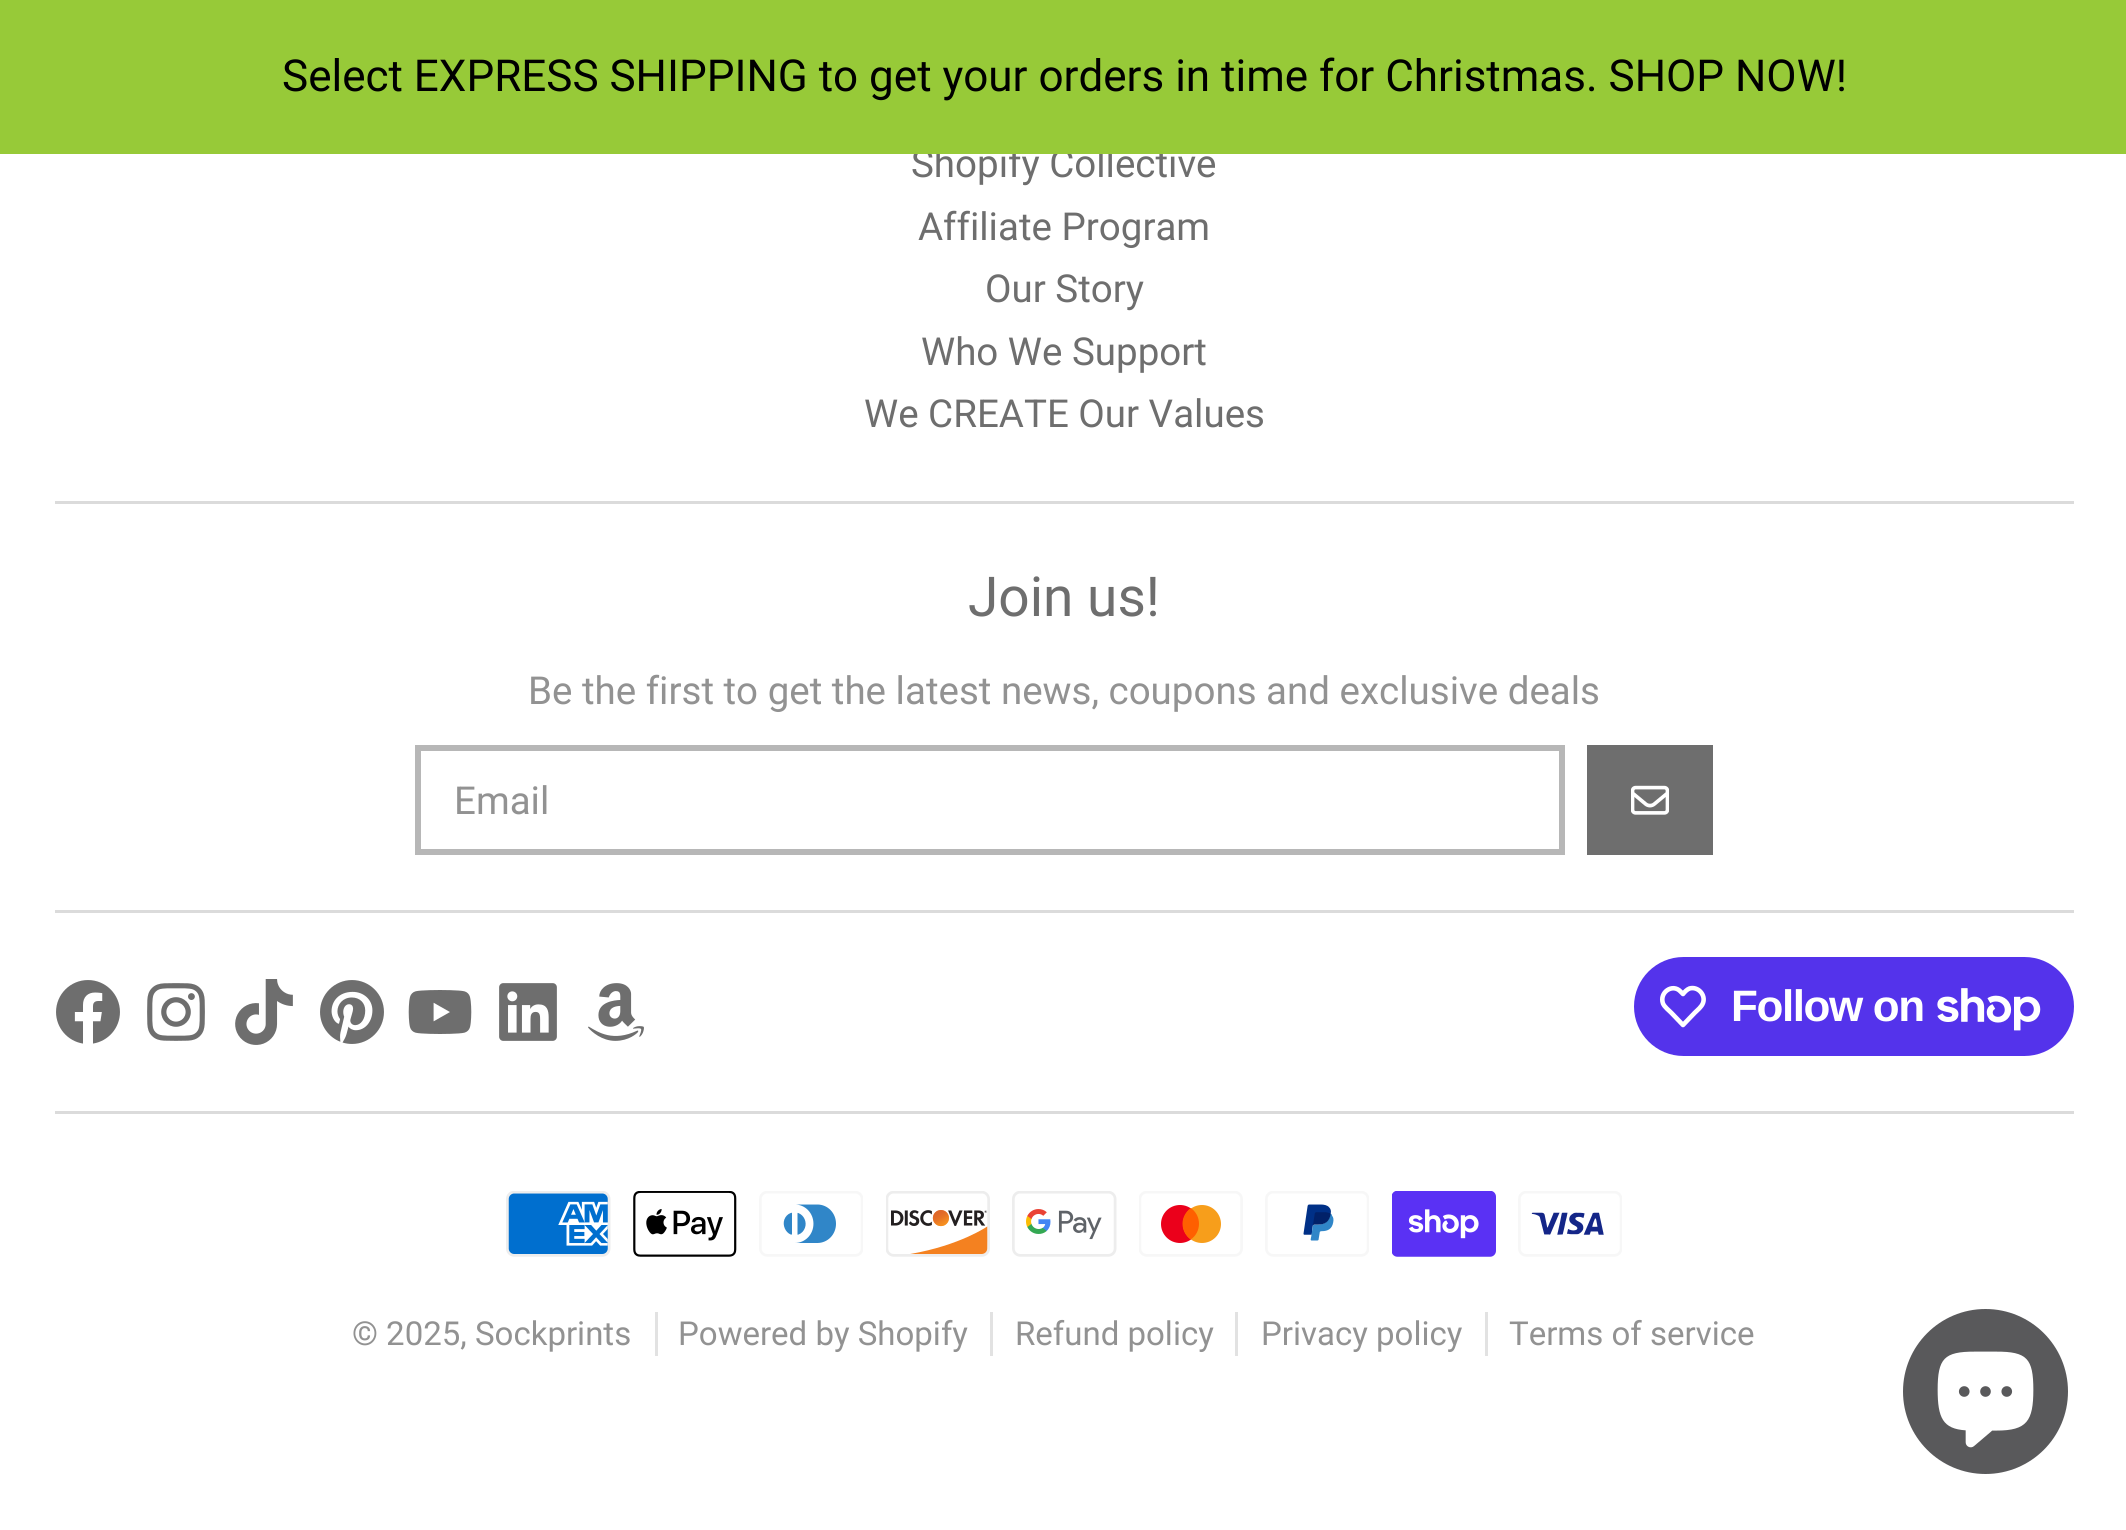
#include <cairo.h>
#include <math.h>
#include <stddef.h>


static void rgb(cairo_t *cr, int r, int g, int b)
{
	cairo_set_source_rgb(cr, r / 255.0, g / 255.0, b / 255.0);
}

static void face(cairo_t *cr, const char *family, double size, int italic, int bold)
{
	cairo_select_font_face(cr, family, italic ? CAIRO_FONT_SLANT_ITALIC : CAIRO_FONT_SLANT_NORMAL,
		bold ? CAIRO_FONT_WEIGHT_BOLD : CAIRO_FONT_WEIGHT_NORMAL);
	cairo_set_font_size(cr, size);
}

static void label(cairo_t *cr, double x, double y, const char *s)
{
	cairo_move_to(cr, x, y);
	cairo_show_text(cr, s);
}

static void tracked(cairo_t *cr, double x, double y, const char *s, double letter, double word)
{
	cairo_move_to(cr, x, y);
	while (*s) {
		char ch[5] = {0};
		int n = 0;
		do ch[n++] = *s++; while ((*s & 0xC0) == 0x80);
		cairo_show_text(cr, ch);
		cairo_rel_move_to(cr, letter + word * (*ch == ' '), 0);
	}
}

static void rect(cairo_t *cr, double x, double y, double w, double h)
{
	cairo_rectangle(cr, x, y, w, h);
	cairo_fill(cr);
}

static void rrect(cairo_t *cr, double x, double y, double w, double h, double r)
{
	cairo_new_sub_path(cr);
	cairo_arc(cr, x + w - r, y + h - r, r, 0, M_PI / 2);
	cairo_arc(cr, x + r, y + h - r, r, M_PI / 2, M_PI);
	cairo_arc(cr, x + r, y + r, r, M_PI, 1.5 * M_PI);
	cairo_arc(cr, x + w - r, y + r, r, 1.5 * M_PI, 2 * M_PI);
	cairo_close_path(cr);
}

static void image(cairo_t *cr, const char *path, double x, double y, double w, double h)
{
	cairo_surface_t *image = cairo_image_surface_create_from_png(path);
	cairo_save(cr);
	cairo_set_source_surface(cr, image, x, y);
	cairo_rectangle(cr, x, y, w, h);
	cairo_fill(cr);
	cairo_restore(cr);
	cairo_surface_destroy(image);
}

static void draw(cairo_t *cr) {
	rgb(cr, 255, 255, 255);
	cairo_paint(cr);
	face(cr, "Roboto", 38.5, 0, 0);
	rgb(cr, 110, 110, 110);
	label(cr, 911, 177, "Shopify Collective");
	rgb(cr, 151, 202, 56);
	rect(cr, 0, 0, 2126, 154);
	face(cr, "Roboto", 44, 0, 0);
	rgb(cr, 0, 0, 0);
	label(cr, 282, 91, "Select EXPRESS SHIPPING to get your orders in time for Christmas. SHOP NOW!");
	face(cr, "Roboto", 38.5, 0, 0);
	rgb(cr, 110, 110, 110);
	label(cr, 918, 240, "Affiliate Program");
	label(cr, 985, 302, "Our Story");
	label(cr, 921, 365, "Who We Support");
	label(cr, 864, 427, "We CREATE Our Values");
	rgb(cr, 219, 219, 219);
	rect(cr, 55, 501, 2019, 3);
	face(cr, "Roboto", 55, 0, 0);
	rgb(cr, 110, 110, 110);
	label(cr, 968, 616, "Join us!");
	face(cr, "Roboto", 38.5, 0, 0);
	rgb(cr, 146, 146, 146);
	label(cr, 528, 704, "Be the first to get the latest news, coupons and exclusive deals");
	cairo_rectangle(cr, 418, 748, 1144, 104);
	rgb(cr, 183, 183, 183);
	cairo_set_line_width(cr, 6);
	cairo_stroke(cr);
	rgb(cr, 146, 146, 146);
	label(cr, 454, 814, "Email");
	rgb(cr, 110, 110, 110);
	rect(cr, 1587, 745, 126, 110);
	image(cr, "image0.png", 1631, 785, 38, 30);
	rgb(cr, 219, 219, 219);
	rect(cr, 55, 910, 2019, 3);
	image(cr, "image1.png", 56, 980, 64, 64);
	image(cr, "image2.png", 147, 983, 58, 58);
	image(cr, "image3.png", 235, 979, 58, 66);
	image(cr, "image4.png", 320, 980, 64, 64);
	image(cr, "image5.png", 408, 990, 64, 44);
	image(cr, "image6.png", 499, 983, 58, 58);
	image(cr, "image7.png", 588, 983, 56, 58);
	rgb(cr, 84, 51, 235);
	rrect(cr, 1634, 957, 440, 99, 49.5);
	cairo_fill(cr);
	cairo_new_path(cr);
	cairo_move_to(cr, 1680.5, 991.5);
	cairo_line_to(cr, 1683, 994);
	cairo_curve_to(cr, 1685, 991.5, 1687, 989.5, 1689.5, 988.5);
	cairo_curve_to(cr, 1698, 986, 1706, 995, 1703, 1003);
	cairo_curve_to(cr, 1701.5, 1007, 1697.5, 1010, 1694.5, 1013);
	cairo_line_to(cr, 1683, 1025);
	cairo_line_to(cr, 1671.5, 1013);
	cairo_curve_to(cr, 1668.5, 1010, 1664.5, 1007, 1663, 1003.5);
	cairo_curve_to(cr, 1659, 992.5, 1672.5, 983, 1680.5, 991.5);
	cairo_close_path(cr);
	rgb(cr, 255, 255, 255);
	cairo_set_line_width(cr, 4.6);
	cairo_set_line_join(cr, CAIRO_LINE_JOIN_ROUND);
	cairo_stroke(cr);
	face(cr, "Liberation Sans", 44, 0, 1);
	tracked(cr, 1731, 1021, "Follow on", -1.4, 0);
	image(cr, "image8.png", 1937, 988, 104, 43);
	rgb(cr, 219, 219, 219);
	rect(cr, 55, 1111, 2019, 3);
	image(cr, "image9.png", 506, 1191, 105, 66);
	image(cr, "image10.png", 633, 1191, 104, 66);
	image(cr, "image11.png", 759, 1191, 104, 66);
	image(cr, "image12.png", 886, 1191, 104, 66);
	image(cr, "image13.png", 1012, 1191, 105, 66);
	image(cr, "image14.png", 1139, 1191, 104, 66);
	image(cr, "image15.png", 1265, 1191, 104, 66);
	image(cr, "image16.png", 1392, 1191, 104, 66);
	image(cr, "image17.png", 1518, 1191, 104, 66);
	face(cr, "Roboto", 33, 0, 0);
	rgb(cr, 146, 146, 146);
	label(cr, 352, 1345, "© 2025, Sockprints");
	rgb(cr, 226, 226, 226);
	rect(cr, 655, 1312, 3, 44);
	rgb(cr, 146, 146, 146);
	label(cr, 678, 1345, "Powered by Shopify");
	rgb(cr, 226, 226, 226);
	rect(cr, 990, 1312, 3, 44);
	rgb(cr, 146, 146, 146);
	label(cr, 1015, 1345, "Refund policy");
	rgb(cr, 226, 226, 226);
	rect(cr, 1235, 1312, 3, 44);
	rgb(cr, 146, 146, 146);
	label(cr, 1261, 1345, "Privacy policy");
	rgb(cr, 226, 226, 226);
	rect(cr, 1485, 1312, 3, 44);
	rgb(cr, 146, 146, 146);
	label(cr, 1509, 1345, "Terms of service");
	rgb(cr, 89, 89, 91);
	cairo_new_path(cr);
	cairo_arc(cr, 1985.5, 1391.5, 82.5, 0, 2 * M_PI);
	cairo_fill(cr);
	image(cr, "image18.png", 1937, 1351, 97, 97);
}

int main(void) {
	cairo_surface_t *surface = cairo_image_surface_create(CAIRO_FORMAT_RGB24, 2126, 1530);
	cairo_t *cr = cairo_create(surface);
	cairo_font_options_t *options = cairo_font_options_create();
	cairo_font_options_set_hint_metrics(options, CAIRO_HINT_METRICS_OFF);
	cairo_font_options_set_hint_style(options, CAIRO_HINT_STYLE_NONE);
	cairo_set_font_options(cr, options);
	cairo_set_miter_limit(cr, 4);
	draw(cr);
	cairo_surface_write_to_png(surface, "render.png");
	cairo_font_options_destroy(options);
	cairo_destroy(cr);
	cairo_surface_destroy(surface);
	return 0;
}
